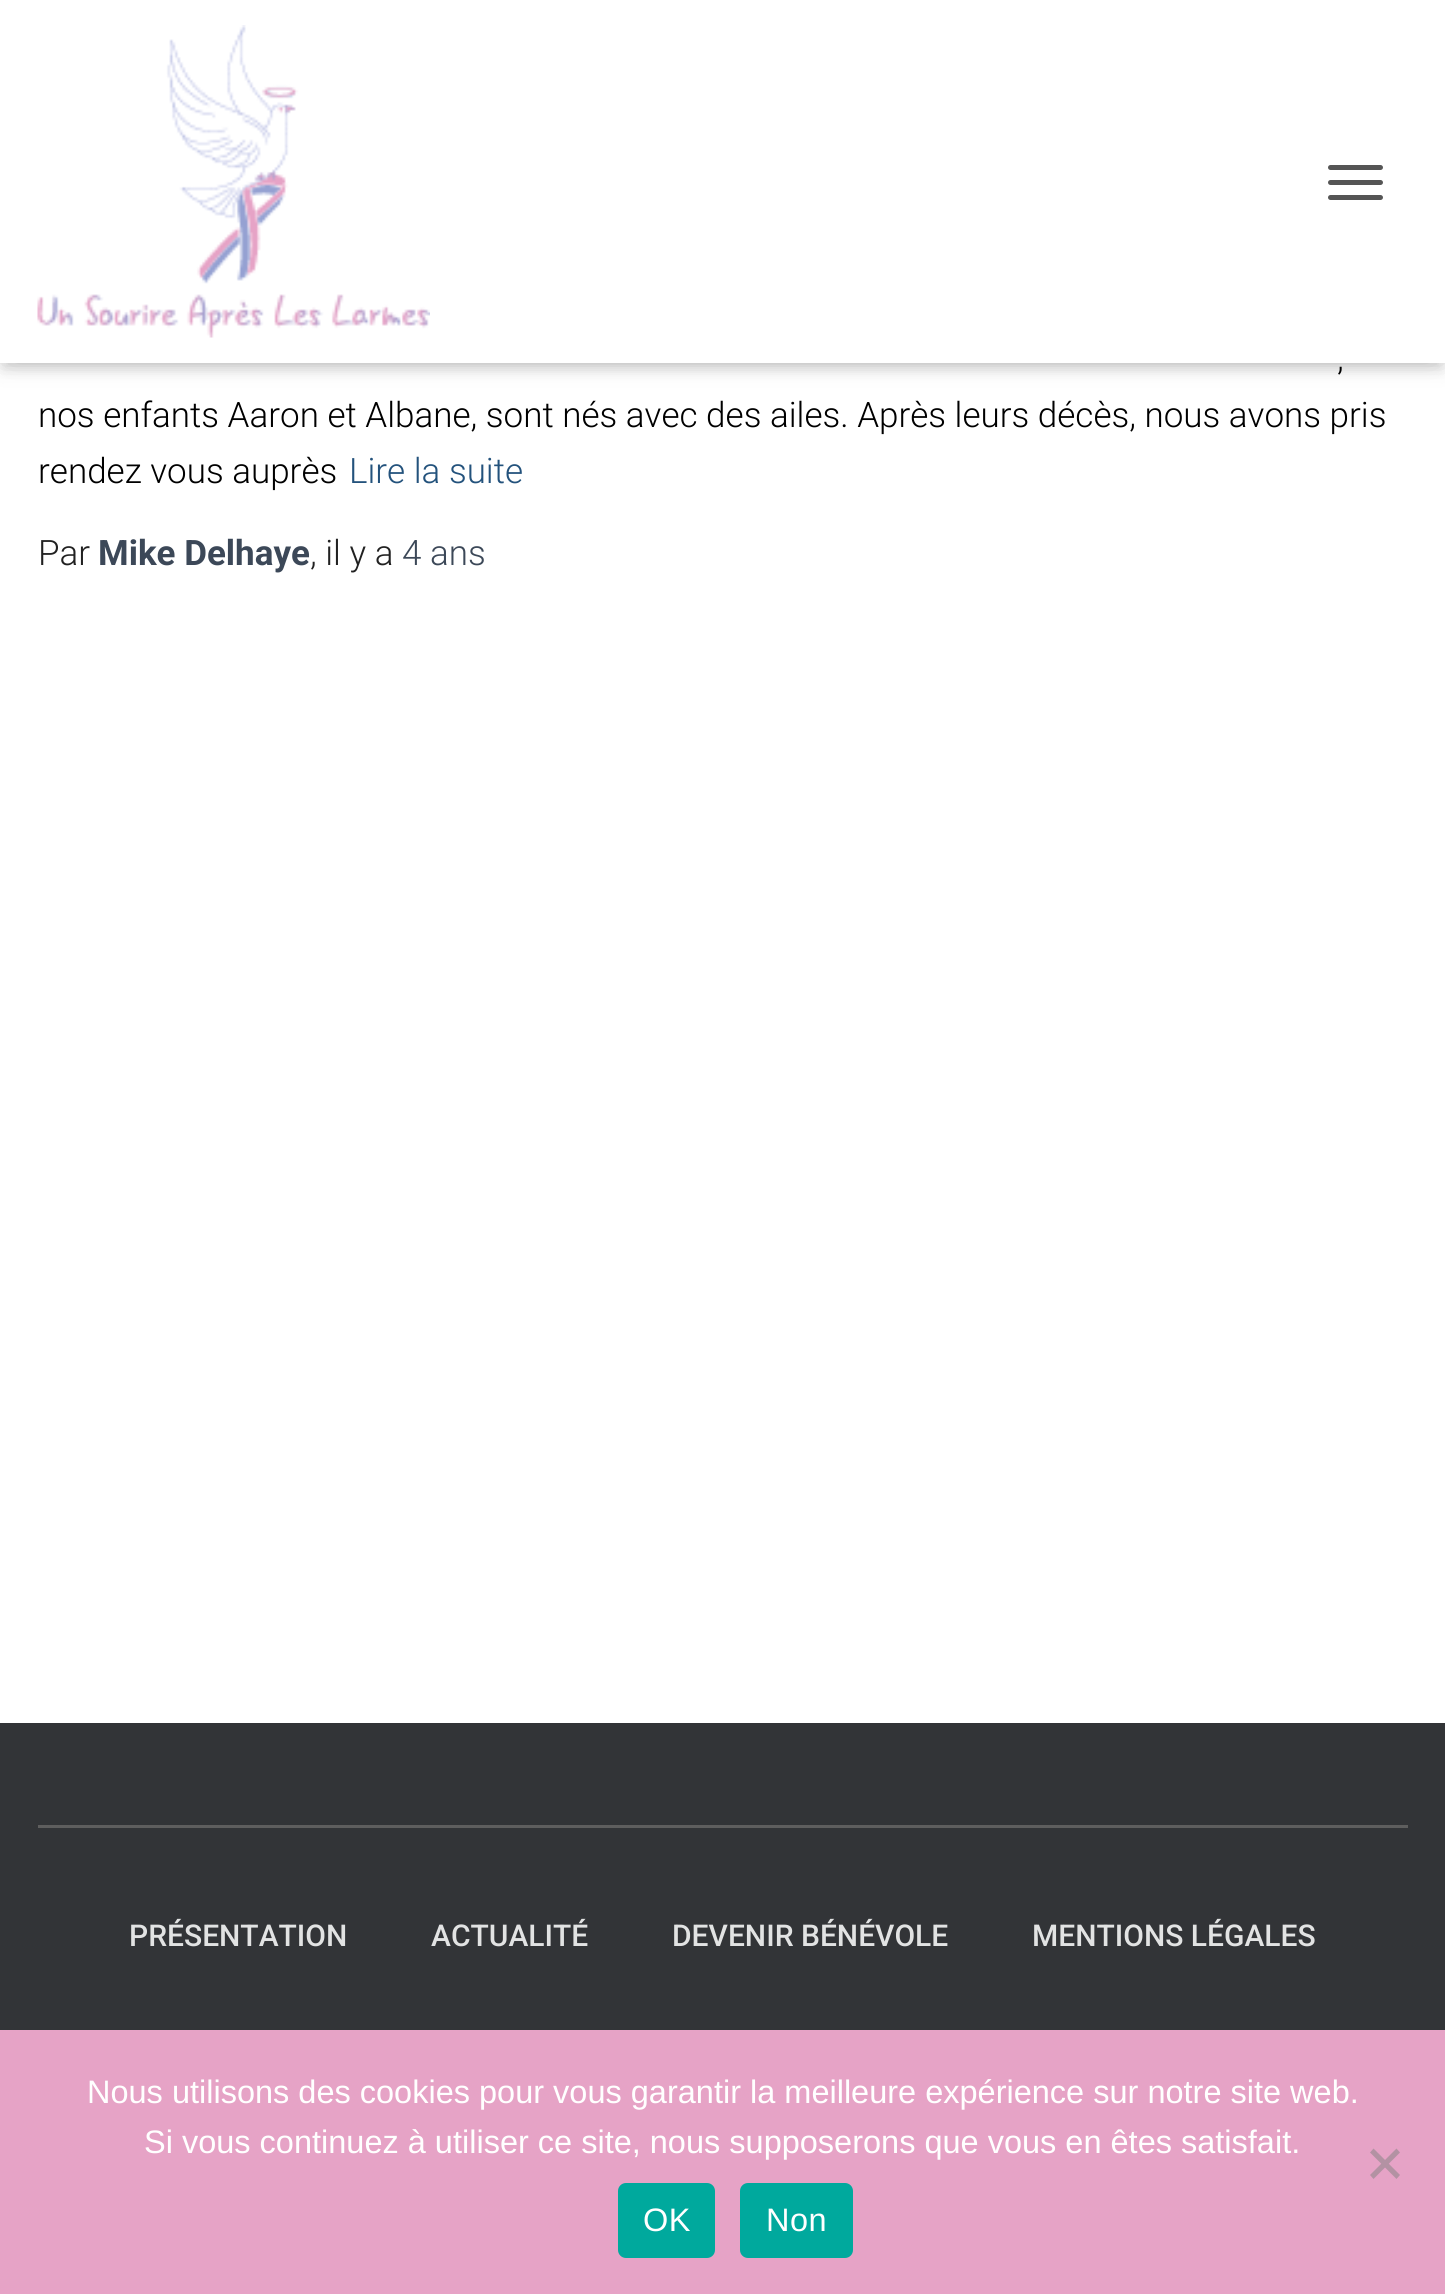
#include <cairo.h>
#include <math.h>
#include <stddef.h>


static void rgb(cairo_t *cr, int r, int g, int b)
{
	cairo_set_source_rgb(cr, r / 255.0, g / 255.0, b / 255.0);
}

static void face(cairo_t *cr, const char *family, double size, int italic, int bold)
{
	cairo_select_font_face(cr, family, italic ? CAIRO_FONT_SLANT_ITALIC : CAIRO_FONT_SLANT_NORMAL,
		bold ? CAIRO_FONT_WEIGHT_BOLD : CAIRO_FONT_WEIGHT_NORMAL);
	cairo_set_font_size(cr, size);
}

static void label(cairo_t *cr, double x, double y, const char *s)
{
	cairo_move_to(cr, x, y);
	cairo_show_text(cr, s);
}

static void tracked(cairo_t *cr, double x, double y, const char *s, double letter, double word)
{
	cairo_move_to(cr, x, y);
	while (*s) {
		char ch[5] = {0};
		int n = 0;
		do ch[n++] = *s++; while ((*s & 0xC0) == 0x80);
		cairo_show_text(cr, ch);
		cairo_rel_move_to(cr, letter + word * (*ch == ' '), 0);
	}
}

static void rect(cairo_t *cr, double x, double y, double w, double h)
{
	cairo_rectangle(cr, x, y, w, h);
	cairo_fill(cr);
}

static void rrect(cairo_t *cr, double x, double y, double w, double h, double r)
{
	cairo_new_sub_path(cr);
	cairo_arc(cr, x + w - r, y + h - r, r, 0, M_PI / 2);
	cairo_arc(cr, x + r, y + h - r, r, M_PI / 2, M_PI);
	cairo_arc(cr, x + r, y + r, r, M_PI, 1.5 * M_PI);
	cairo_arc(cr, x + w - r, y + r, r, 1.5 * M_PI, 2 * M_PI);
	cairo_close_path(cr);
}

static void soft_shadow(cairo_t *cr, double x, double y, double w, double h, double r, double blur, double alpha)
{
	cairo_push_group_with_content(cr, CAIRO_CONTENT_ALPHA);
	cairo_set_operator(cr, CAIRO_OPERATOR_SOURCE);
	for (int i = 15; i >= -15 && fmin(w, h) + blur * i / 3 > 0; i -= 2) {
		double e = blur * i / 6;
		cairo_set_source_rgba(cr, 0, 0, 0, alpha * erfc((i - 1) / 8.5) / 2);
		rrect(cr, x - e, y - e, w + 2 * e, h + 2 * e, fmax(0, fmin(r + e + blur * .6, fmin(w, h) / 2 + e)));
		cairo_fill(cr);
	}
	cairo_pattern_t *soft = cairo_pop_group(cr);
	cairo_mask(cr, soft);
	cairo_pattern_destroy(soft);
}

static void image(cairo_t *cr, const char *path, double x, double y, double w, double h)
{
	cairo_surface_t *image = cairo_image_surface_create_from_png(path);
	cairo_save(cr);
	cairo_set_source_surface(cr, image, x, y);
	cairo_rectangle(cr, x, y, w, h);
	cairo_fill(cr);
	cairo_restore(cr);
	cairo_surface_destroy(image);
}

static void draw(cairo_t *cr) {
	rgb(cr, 50, 52, 55);
	cairo_paint(cr);
	rgb(cr, 255, 255, 255);
	rect(cr, 0, 363, 1445, 1360);
	rgb(cr, 0, 0, 0);
	soft_shadow(cr, 5, 15, 1435, 353, 0, 6, 0.1);
	soft_shadow(cr, 0, 3, 1445, 362, 0, 12.5, 0.12);
	soft_shadow(cr, 15, 18, 1415, 332, 0, 12.5, 0.42);
	rgb(cr, 255, 255, 255);
	rect(cr, 0, 0, 1445, 363);
	image(cr, "image0.png", 37, 25, 393, 313);
	rgb(cr, 85, 85, 85);
	rrect(cr, 1328, 165, 55, 5, 2.5);
	cairo_fill(cr);
	rrect(cr, 1328, 180, 55, 5, 2.5);
	cairo_fill(cr);
	rrect(cr, 1328, 195, 55, 5, 2.5);
	cairo_fill(cr);
	face(cr, "Roboto Light", 35, 0, 0);
	rgb(cr, 0, 0, 0);
	label(cr, 1337, 370, ",");
	label(cr, 38, 427, "nos enfants Aaron et Albane, sont nés avec des ailes. Après leurs décès, nous avons pris");
	label(cr, 38, 483, "rendez vous auprès");
	rgb(cr, 35, 82, 124);
	label(cr, 349, 483, "Lire la suite");
	rgb(cr, 33, 33, 33);
	label(cr, 38, 565, "Par");
	face(cr, "Roboto", 35, 0, 1);
	rgb(cr, 60, 72, 88);
	label(cr, 98, 565, "Mike Delhaye");
	face(cr, "Roboto Light", 35, 0, 0);
	rgb(cr, 33, 33, 33);
	label(cr, 310, 565, ", il y a");
	rgb(cr, 60, 72, 88);
	label(cr, 402, 565, "4 ans");
	rgb(cr, 94, 94, 94);
	rect(cr, 38, 1825, 1370, 3);
	face(cr, "Roboto Medium", 30, 0, 0);
	rgb(cr, 226, 227, 227);
	label(cr, 129, 1946, "PRÉSENTATION");
	label(cr, 431, 1946, "ACTUALITÉ");
	label(cr, 672, 1946, "DEVENIR BÉNÉVOLE");
	label(cr, 1032, 1946, "MENTIONS LÉGALES");
	rgb(cr, 230, 163, 198);
	rect(cr, 0, 2030, 1445, 264);
	face(cr, "Liberation Sans", 32.5, 0, 0);
	rgb(cr, 255, 255, 255);
	label(cr, 87, 2103, "Nous utilisons des cookies pour vous garantir la meilleure expérience sur notre site web.");
	label(cr, 144, 2153, "Si vous continuez à utiliser ce site, nous supposerons que vous en êtes satisfait.");
	rgb(cr, 179, 146, 163);
	cairo_new_path(cr);
	cairo_move_to(cr, 1396.5, 2148.5);
	cairo_line_to(cr, 1400, 2152.5);
	cairo_line_to(cr, 1373.5, 2179);
	cairo_line_to(cr, 1370, 2175);
	cairo_close_path(cr);
	cairo_fill(cr);
	cairo_new_path(cr);
	cairo_move_to(cr, 1370, 2152.5);
	cairo_line_to(cr, 1373.5, 2148.5);
	cairo_line_to(cr, 1400, 2175);
	cairo_line_to(cr, 1396.5, 2179);
	cairo_close_path(cr);
	cairo_fill(cr);
	rgb(cr, 0, 169, 157);
	rrect(cr, 618, 2183, 97, 75, 8);
	cairo_fill(cr);
	rgb(cr, 255, 255, 255);
	tracked(cr, 643, 2231, "OK", 0.5, 0);
	rgb(cr, 0, 169, 157);
	rrect(cr, 740, 2183, 113, 75, 8);
	cairo_fill(cr);
	rgb(cr, 255, 255, 255);
	tracked(cr, 766, 2231, "Non", 0.5, 0);
}

int main(void) {
	cairo_surface_t *surface = cairo_image_surface_create(CAIRO_FORMAT_RGB24, 1445, 2294);
	cairo_t *cr = cairo_create(surface);
	cairo_font_options_t *options = cairo_font_options_create();
	cairo_font_options_set_hint_metrics(options, CAIRO_HINT_METRICS_OFF);
	cairo_font_options_set_hint_style(options, CAIRO_HINT_STYLE_NONE);
	cairo_set_font_options(cr, options);
	cairo_set_miter_limit(cr, 4);
	draw(cr);
	cairo_surface_write_to_png(surface, "render.png");
	cairo_font_options_destroy(options);
	cairo_destroy(cr);
	cairo_surface_destroy(surface);
	return 0;
}
